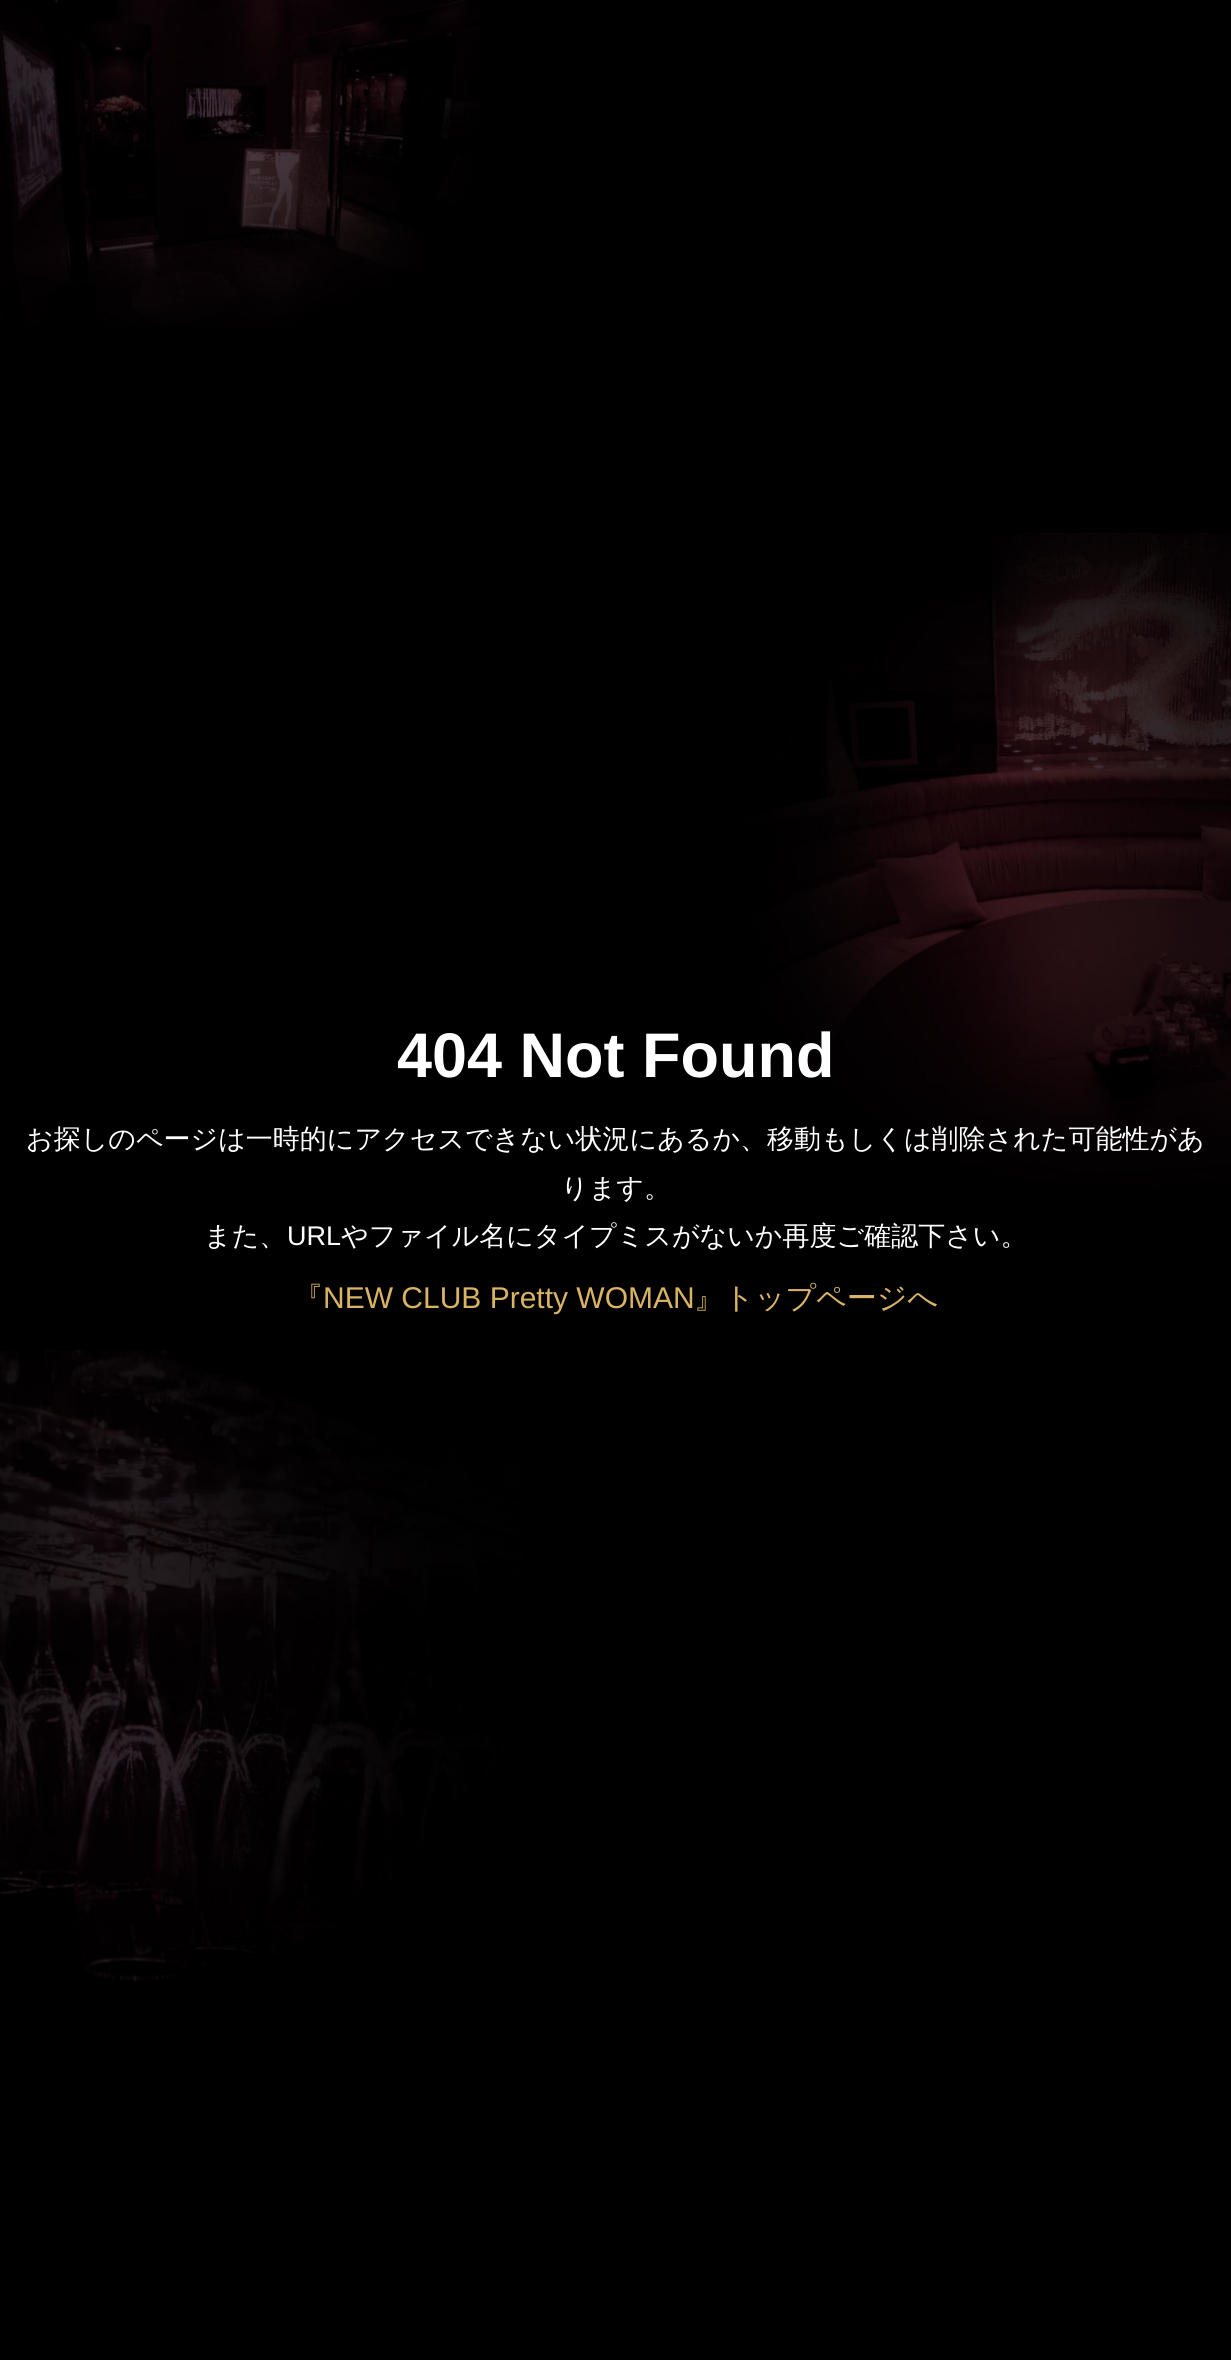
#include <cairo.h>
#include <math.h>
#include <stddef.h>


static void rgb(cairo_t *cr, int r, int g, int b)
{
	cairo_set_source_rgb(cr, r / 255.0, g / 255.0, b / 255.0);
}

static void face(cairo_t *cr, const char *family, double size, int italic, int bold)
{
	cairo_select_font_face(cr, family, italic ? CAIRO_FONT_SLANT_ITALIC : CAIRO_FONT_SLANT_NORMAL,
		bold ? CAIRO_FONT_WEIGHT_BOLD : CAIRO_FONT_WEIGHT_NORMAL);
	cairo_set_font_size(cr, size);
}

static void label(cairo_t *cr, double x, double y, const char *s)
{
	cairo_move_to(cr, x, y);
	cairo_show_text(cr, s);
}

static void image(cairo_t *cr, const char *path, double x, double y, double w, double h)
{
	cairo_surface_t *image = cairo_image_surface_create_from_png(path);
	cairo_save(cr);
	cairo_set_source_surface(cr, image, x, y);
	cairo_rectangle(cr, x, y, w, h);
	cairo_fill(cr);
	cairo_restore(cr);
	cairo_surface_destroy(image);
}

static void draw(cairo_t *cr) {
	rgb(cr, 0, 0, 0);
	cairo_paint(cr);
	image(cr, "image0.png", 0, 0, 1231, 1982);
	face(cr, "Liberation Sans", 63, 0, 1);
	rgb(cr, 255, 255, 255);
	label(cr, 397, 1077, "404 Not Found");
	face(cr, "WenQuanYi Zen Hei Medium", 27, 0, 0);
	label(cr, 26, 1148, "お探しのページは一時的にアクセスできない状況にあるか、移動もしくは削除された可能性があ");
	label(cr, 561, 1197, "ります。");
	label(cr, 204, 1245, "また、");
	face(cr, "Liberation Sans", 27, 0, 0);
	label(cr, 287, 1245, "URL");
	face(cr, "WenQuanYi Zen Hei Medium", 27, 0, 0);
	label(cr, 341, 1245, "やファイル名にタイプミスがないか再度ご確認下さい。");
	face(cr, "WenQuanYi Zen Hei Medium", 30, 0, 0);
	rgb(cr, 218, 179, 101);
	label(cr, 293, 1308, "『");
	face(cr, "Liberation Sans", 30, 0, 0);
	label(cr, 323, 1308, "NEW CLUB Pretty WOMAN");
	face(cr, "WenQuanYi Zen Hei Medium", 30, 0, 0);
	label(cr, 694, 1308, "』トップページへ");
}

int main(void) {
	cairo_surface_t *surface = cairo_image_surface_create(CAIRO_FORMAT_RGB24, 1231, 2360);
	cairo_t *cr = cairo_create(surface);
	cairo_font_options_t *options = cairo_font_options_create();
	cairo_font_options_set_hint_metrics(options, CAIRO_HINT_METRICS_OFF);
	cairo_font_options_set_hint_style(options, CAIRO_HINT_STYLE_NONE);
	cairo_set_font_options(cr, options);
	cairo_set_miter_limit(cr, 4);
	draw(cr);
	cairo_surface_write_to_png(surface, "render.png");
	cairo_font_options_destroy(options);
	cairo_destroy(cr);
	cairo_surface_destroy(surface);
	return 0;
}
